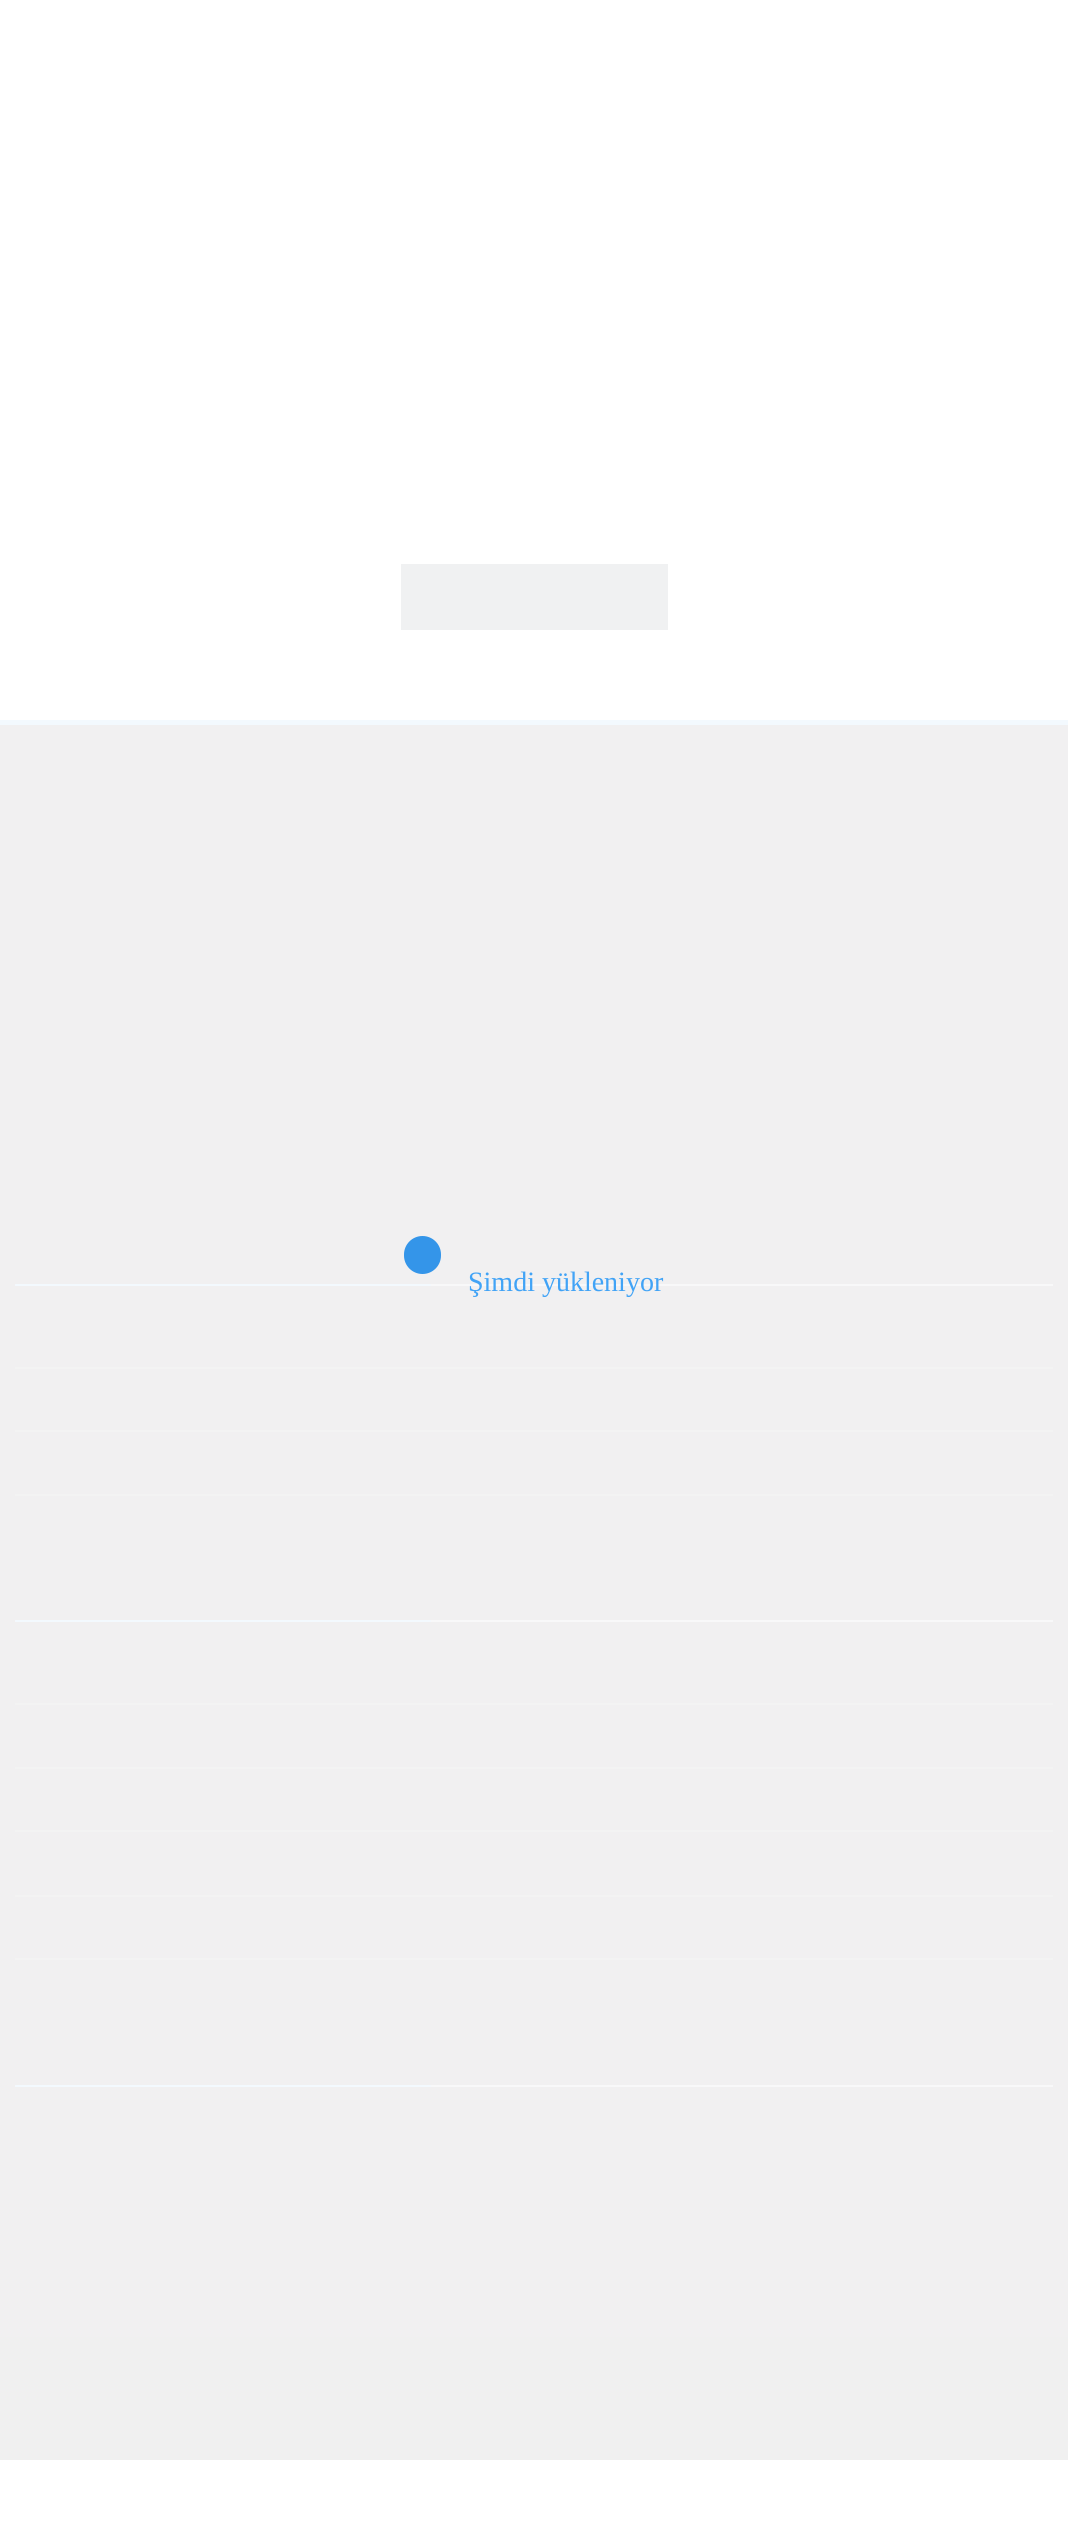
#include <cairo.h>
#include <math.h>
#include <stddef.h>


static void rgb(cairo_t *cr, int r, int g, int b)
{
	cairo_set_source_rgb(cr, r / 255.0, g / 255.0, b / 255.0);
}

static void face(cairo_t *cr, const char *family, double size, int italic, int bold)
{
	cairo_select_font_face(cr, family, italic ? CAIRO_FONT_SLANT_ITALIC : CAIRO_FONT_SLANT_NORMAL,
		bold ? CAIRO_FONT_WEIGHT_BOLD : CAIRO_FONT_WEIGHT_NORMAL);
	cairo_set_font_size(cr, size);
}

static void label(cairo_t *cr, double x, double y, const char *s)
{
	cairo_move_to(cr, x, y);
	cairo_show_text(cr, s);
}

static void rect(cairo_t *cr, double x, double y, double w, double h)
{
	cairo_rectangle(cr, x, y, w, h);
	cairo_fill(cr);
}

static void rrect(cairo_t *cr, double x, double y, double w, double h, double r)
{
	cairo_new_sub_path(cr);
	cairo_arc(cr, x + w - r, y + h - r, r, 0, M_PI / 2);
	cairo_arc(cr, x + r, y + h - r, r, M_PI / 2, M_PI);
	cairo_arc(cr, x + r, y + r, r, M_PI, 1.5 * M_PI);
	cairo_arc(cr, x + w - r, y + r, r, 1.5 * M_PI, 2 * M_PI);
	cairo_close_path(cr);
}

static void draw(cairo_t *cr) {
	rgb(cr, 255, 255, 255);
	cairo_paint(cr);
	rgb(cr, 240, 241, 242);
	rect(cr, 401, 564, 267, 66);
	rgb(cr, 243, 249, 254);
	rect(cr, 0, 720, 1068, 5);
	rgb(cr, 241, 240, 241);
	rect(cr, 0, 725, 1068, 1612);
	rgb(cr, 248, 248, 249);
	rect(cr, 15, 1284, 1038, 2);
	rgb(cr, 243, 249, 254);
	rrect(cr, 15, 1284, 416, 2, 1);
	cairo_fill(cr);
	rgb(cr, 243, 243, 243);
	rect(cr, 15, 1367, 1038, 2);
	rect(cr, 15, 1430, 1038, 2);
	rect(cr, 15, 1494, 1038, 2);
	rgb(cr, 248, 248, 249);
	rect(cr, 15, 1620, 1038, 2);
	rgb(cr, 243, 249, 254);
	rrect(cr, 15, 1620, 416, 2, 1);
	cairo_fill(cr);
	rgb(cr, 243, 243, 243);
	rect(cr, 15, 1703, 1038, 2);
	rect(cr, 15, 1767, 1038, 2);
	rect(cr, 15, 1830, 1038, 2);
	rect(cr, 15, 1895, 1038, 2);
	rect(cr, 15, 1958, 1038, 2);
	rgb(cr, 248, 248, 249);
	rect(cr, 15, 2085, 1038, 2);
	rgb(cr, 243, 249, 254);
	rrect(cr, 15, 2085, 416, 2, 1);
	cairo_fill(cr);
	rgb(cr, 240, 240, 240);
	rect(cr, 0, 2337, 1068, 123);
	rgb(cr, 52, 149, 233);
	rrect(cr, 404, 1236, 37, 38, 18.5);
	cairo_fill(cr);
	face(cr, "Liberation Serif", 28, 0, 0);
	rgb(cr, 65, 163, 246);
	label(cr, 468, 1291, "Şimdi yükleniyor");
}

int main(void) {
	cairo_surface_t *surface = cairo_image_surface_create(CAIRO_FORMAT_RGB24, 1068, 2539);
	cairo_t *cr = cairo_create(surface);
	cairo_font_options_t *options = cairo_font_options_create();
	cairo_font_options_set_hint_metrics(options, CAIRO_HINT_METRICS_OFF);
	cairo_font_options_set_hint_style(options, CAIRO_HINT_STYLE_NONE);
	cairo_set_font_options(cr, options);
	cairo_set_miter_limit(cr, 4);
	draw(cr);
	cairo_surface_write_to_png(surface, "render.png");
	cairo_font_options_destroy(options);
	cairo_destroy(cr);
	cairo_surface_destroy(surface);
	return 0;
}
